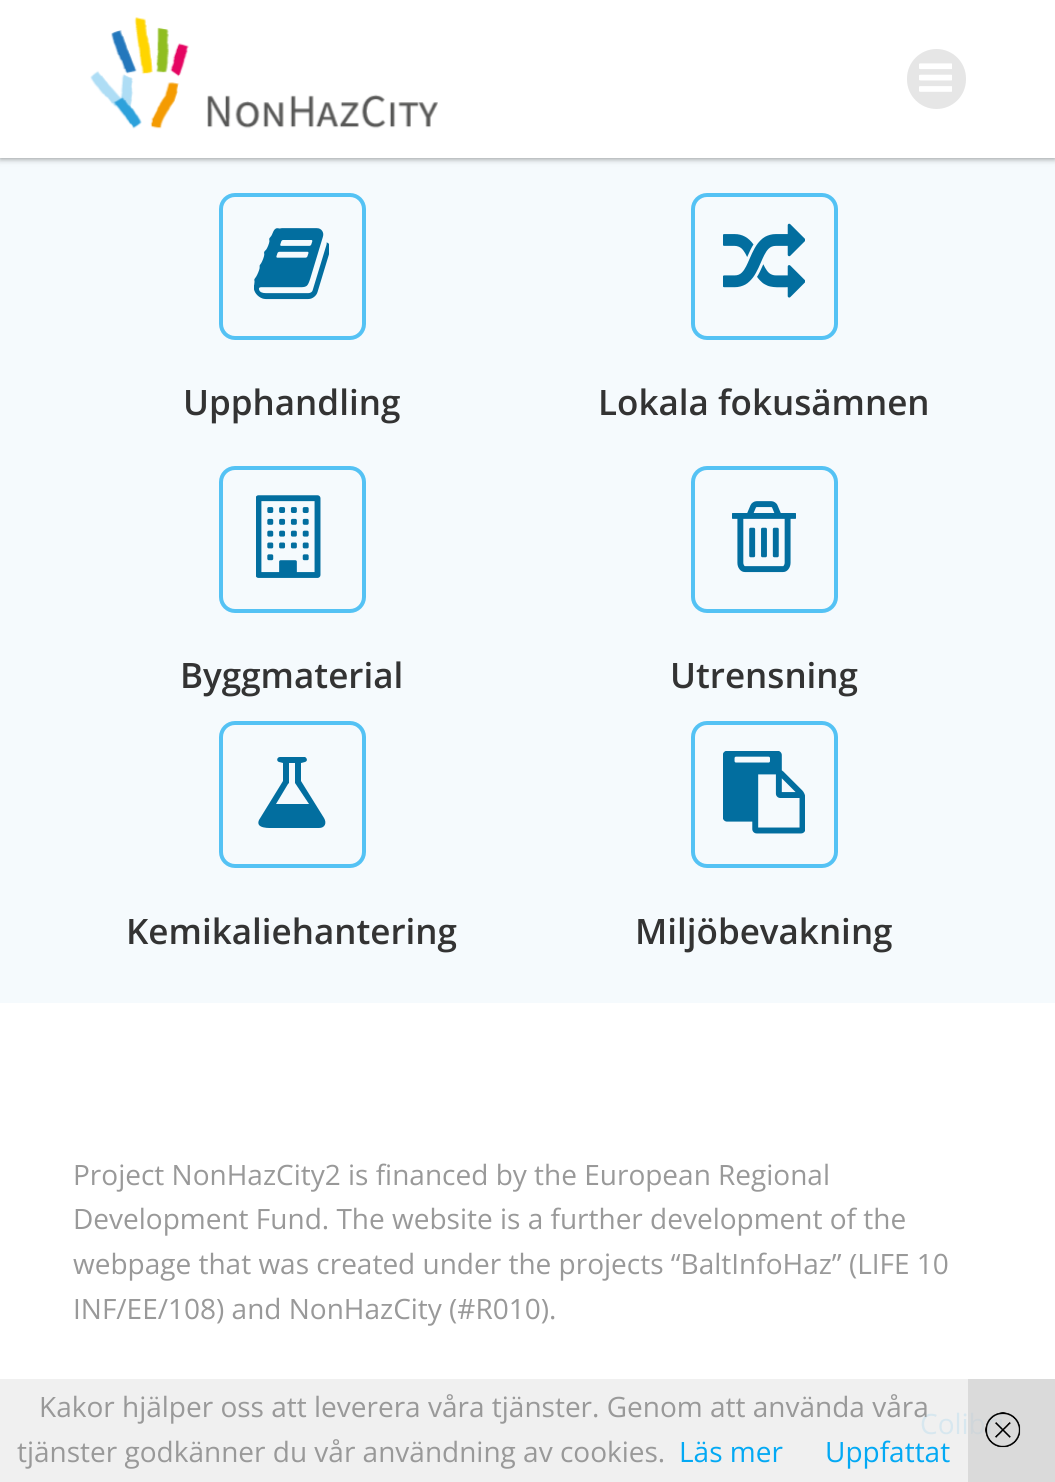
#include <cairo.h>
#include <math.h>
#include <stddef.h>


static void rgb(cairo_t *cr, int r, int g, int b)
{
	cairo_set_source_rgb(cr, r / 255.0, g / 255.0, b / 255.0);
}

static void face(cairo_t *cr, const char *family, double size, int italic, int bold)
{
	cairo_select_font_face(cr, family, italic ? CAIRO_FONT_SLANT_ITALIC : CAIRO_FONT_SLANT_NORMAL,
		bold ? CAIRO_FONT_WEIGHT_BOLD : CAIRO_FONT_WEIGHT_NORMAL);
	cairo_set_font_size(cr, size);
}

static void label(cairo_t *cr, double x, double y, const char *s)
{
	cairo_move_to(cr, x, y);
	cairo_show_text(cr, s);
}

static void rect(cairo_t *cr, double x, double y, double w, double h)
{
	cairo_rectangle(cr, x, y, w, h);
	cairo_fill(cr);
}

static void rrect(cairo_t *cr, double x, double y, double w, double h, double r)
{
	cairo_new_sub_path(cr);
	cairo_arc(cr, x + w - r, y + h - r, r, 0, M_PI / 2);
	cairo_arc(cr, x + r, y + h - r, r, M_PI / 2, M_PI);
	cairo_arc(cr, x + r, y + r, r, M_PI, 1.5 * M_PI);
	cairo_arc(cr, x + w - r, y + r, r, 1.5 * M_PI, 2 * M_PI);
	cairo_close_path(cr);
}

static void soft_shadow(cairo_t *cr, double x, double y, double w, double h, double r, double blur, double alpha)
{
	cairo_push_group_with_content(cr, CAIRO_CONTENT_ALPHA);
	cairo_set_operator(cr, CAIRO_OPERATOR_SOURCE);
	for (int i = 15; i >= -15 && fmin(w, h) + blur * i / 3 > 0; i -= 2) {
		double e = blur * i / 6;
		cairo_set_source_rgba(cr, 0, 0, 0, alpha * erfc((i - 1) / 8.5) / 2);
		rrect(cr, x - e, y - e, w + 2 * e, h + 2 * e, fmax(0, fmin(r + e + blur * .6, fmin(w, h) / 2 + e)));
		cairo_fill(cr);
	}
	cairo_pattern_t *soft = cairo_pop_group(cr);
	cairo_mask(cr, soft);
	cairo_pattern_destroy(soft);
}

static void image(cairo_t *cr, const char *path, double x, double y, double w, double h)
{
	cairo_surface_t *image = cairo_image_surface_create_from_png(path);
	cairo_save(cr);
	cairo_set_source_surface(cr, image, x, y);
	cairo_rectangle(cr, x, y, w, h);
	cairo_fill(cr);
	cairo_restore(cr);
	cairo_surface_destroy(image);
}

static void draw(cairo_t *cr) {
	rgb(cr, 255, 255, 255);
	cairo_paint(cr);
	rgb(cr, 240, 240, 240);
	rect(cr, 0, 1379, 1055, 103);
	rgb(cr, 245, 250, 253);
	rect(cr, 0, 158, 1055, 845);
	rgb(cr, 0, 0, 0);
	soft_shadow(cr, 0, 0, 1055, 158, 0, 3.5, 0.5);
	rgb(cr, 255, 255, 255);
	rect(cr, 0, 0, 1055, 158);
	image(cr, "image0.png", 90, 17, 348, 112);
	rgb(cr, 230, 230, 230);
	rrect(cr, 907, 49, 59, 60, 29.5);
	cairo_fill(cr);
	image(cr, "image1.png", 919, 63, 33, 29);
	rrect(cr, 221, 195, 143, 143, 14);
	rgb(cr, 84, 194, 244);
	cairo_set_line_width(cr, 4);
	cairo_stroke(cr);
	image(cr, "image2.png", 254, 228, 75, 72);
	face(cr, "Open Sans SemiBold", 35, 0, 0);
	rgb(cr, 51, 51, 51);
	label(cr, 183, 415, "Upphandling");
	rrect(cr, 693, 195, 143, 143, 14);
	rgb(cr, 84, 194, 244);
	cairo_stroke(cr);
	image(cr, "image3.png", 723, 223, 82, 75);
	rgb(cr, 51, 51, 51);
	label(cr, 598, 415, "Lokala fokusämnen");
	rrect(cr, 221, 468, 143, 143, 14);
	rgb(cr, 84, 194, 244);
	cairo_stroke(cr);
	image(cr, "image4.png", 256, 495, 65, 83);
	rgb(cr, 51, 51, 51);
	label(cr, 180, 688, "Byggmaterial");
	rrect(cr, 693, 468, 143, 143, 14);
	rgb(cr, 84, 194, 244);
	cairo_stroke(cr);
	image(cr, "image5.png", 732, 501, 64, 72);
	rgb(cr, 51, 51, 51);
	label(cr, 670, 688, "Utrensning");
	rrect(cr, 221, 723, 143, 143, 14);
	rgb(cr, 84, 194, 244);
	cairo_stroke(cr);
	rgb(cr, 2, 110, 159);
	cairo_new_path(cr);
	cairo_move_to(cr, 324, 818);
	cairo_curve_to(cr, 327, 823, 325, 828, 319, 828);
	cairo_line_to(cr, 274, 828);
	cairo_curve_to(cr, 270, 828, 255, 829, 259, 820);
	cairo_line_to(cr, 283, 781);
	cairo_line_to(cr, 283, 763);
	cairo_line_to(cr, 279, 762);
	cairo_curve_to(cr, 276, 761, 277, 757, 280, 757);
	cairo_line_to(cr, 305, 757);
	cairo_curve_to(cr, 307, 758, 308, 761, 305, 762);
	cairo_line_to(cr, 301, 763);
	cairo_line_to(cr, 301, 781);
	cairo_close_path(cr);
	cairo_move_to(cr, 288, 784);
	cairo_line_to(cr, 276, 804);
	cairo_line_to(cr, 309, 804);
	cairo_line_to(cr, 295, 783);
	cairo_line_to(cr, 295, 763);
	cairo_line_to(cr, 289, 763);
	cairo_line_to(cr, 289, 783);
	cairo_close_path(cr);
	cairo_fill(cr);
	rgb(cr, 51, 51, 51);
	label(cr, 126, 944, "Kemikaliehantering");
	rrect(cr, 693, 723, 143, 143, 14);
	rgb(cr, 84, 194, 244);
	cairo_stroke(cr);
	image(cr, "image6.png", 723, 751, 82, 83);
	rgb(cr, 51, 51, 51);
	label(cr, 635, 944, "Miljöbevakning");
	face(cr, "Open Sans", 28, 0, 0);
	rgb(cr, 153, 153, 153);
	label(cr, 73, 1185, "Project NonHazCity2 is financed by the European Regional");
	label(cr, 73, 1229, "Development Fund. The website is a further development of the");
	label(cr, 73, 1274, "webpage that was created under the projects “BaltInfoHaz” (LIFE 10");
	label(cr, 73, 1319, "INF/EE/108) and NonHazCity (#R010).");
	rgb(cr, 215, 231, 239);
	label(cr, 920, 1434, "Colibri");
	rgb(cr, 153, 153, 153);
	label(cr, 39, 1417, "Kakor hjälper oss att leverera våra tjänster. Genom att använda våra");
	label(cr, 17, 1462, "tjänster godkänner du vår användning av cookies.");
	rgb(cr, 3, 169, 244);
	label(cr, 679, 1462, "Läs mer");
	label(cr, 825, 1462, "Uppfattat");
	cairo_set_source_rgba(cr, 0.8, 0.8, 0.8, 0.6);
	rect(cr, 968, 1379, 87, 103);
	image(cr, "image7.png", 985, 1412, 36, 36);
}

int main(void) {
	cairo_surface_t *surface = cairo_image_surface_create(CAIRO_FORMAT_RGB24, 1055, 1482);
	cairo_t *cr = cairo_create(surface);
	cairo_font_options_t *options = cairo_font_options_create();
	cairo_font_options_set_hint_metrics(options, CAIRO_HINT_METRICS_OFF);
	cairo_font_options_set_hint_style(options, CAIRO_HINT_STYLE_NONE);
	cairo_set_font_options(cr, options);
	cairo_set_miter_limit(cr, 4);
	draw(cr);
	cairo_surface_write_to_png(surface, "render.png");
	cairo_font_options_destroy(options);
	cairo_destroy(cr);
	cairo_surface_destroy(surface);
	return 0;
}
